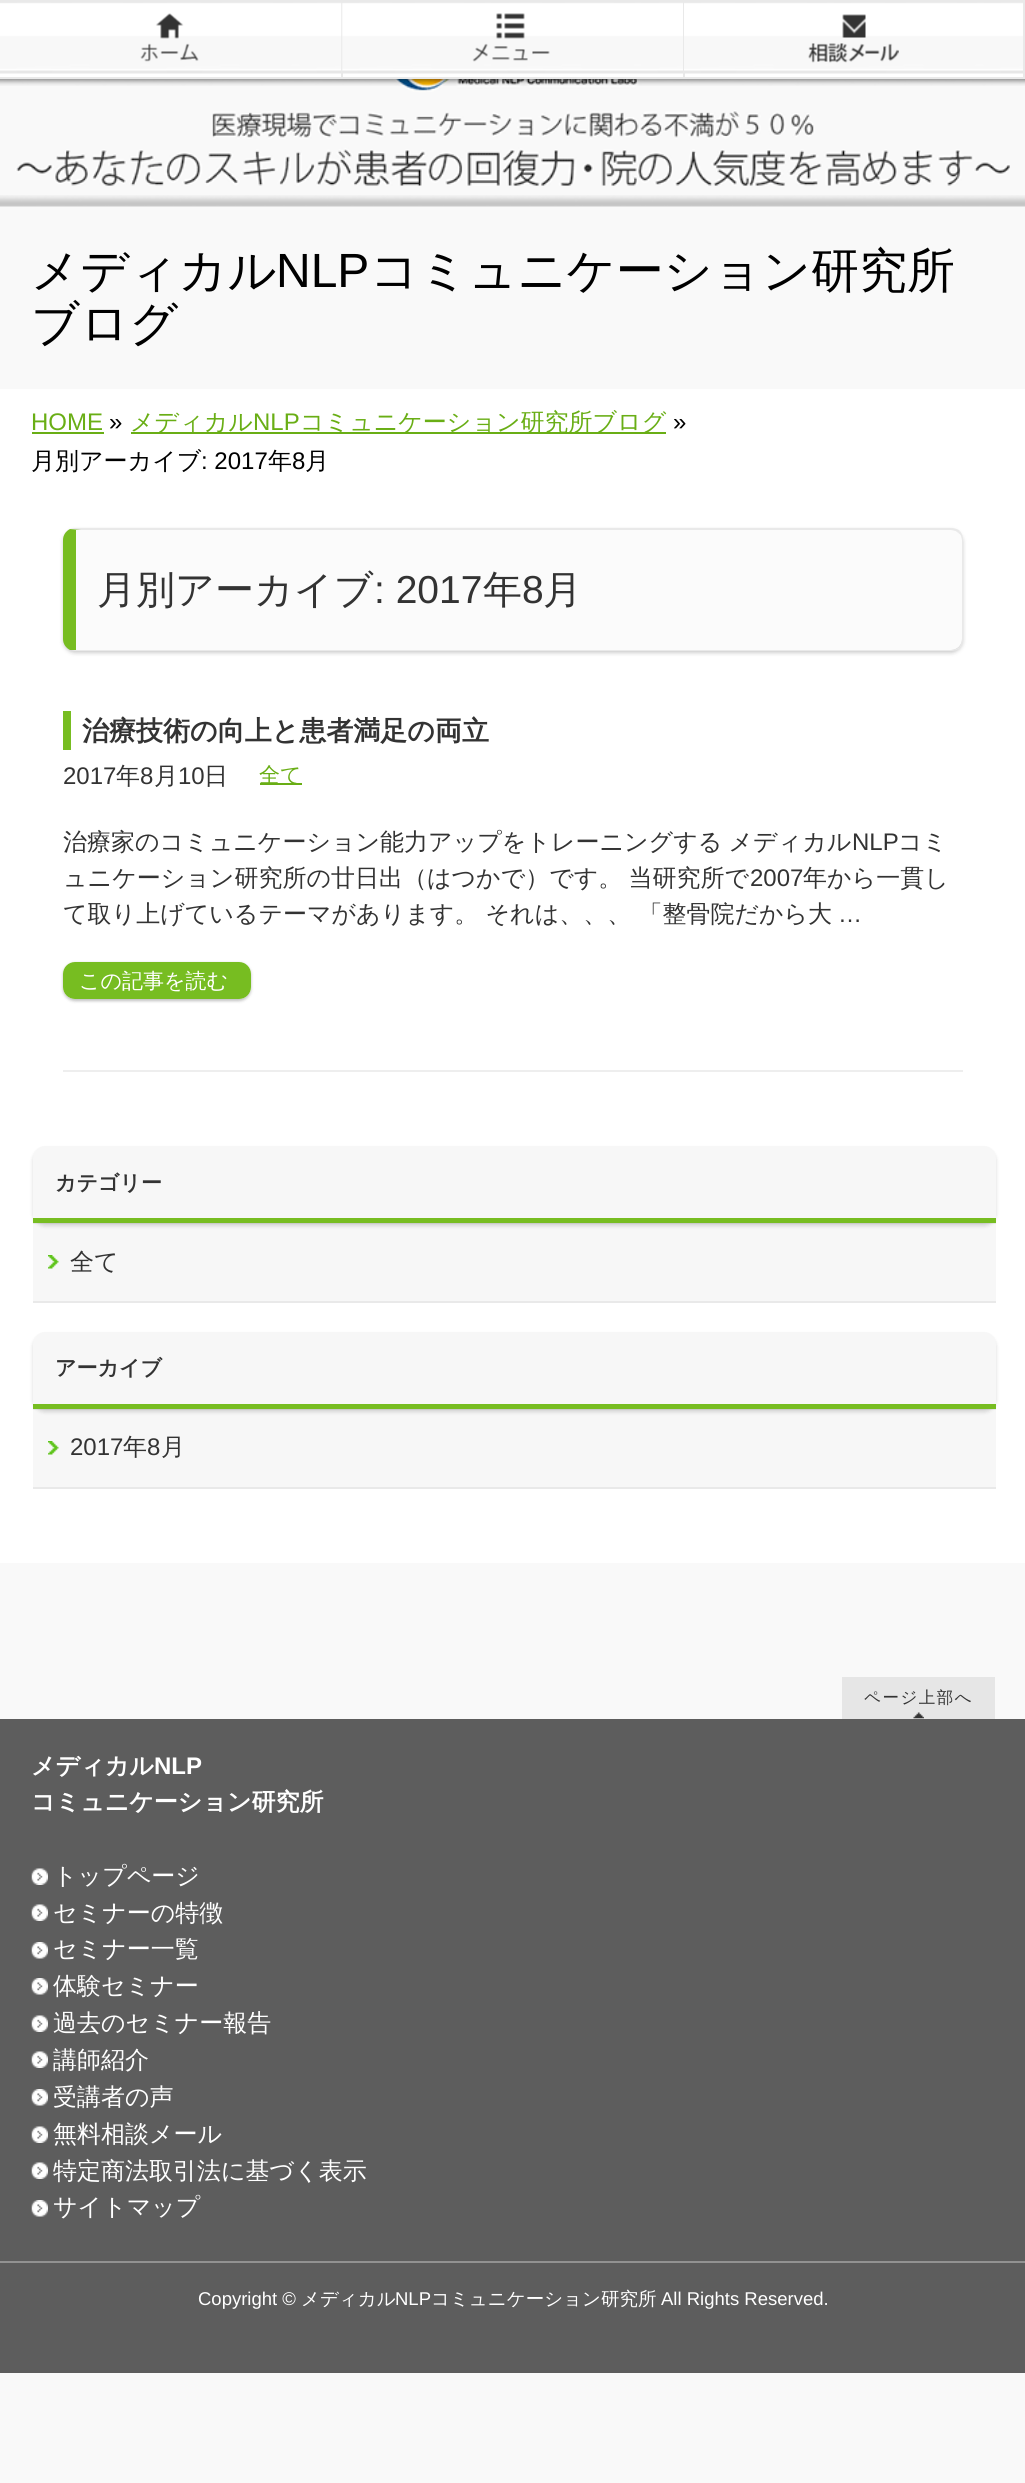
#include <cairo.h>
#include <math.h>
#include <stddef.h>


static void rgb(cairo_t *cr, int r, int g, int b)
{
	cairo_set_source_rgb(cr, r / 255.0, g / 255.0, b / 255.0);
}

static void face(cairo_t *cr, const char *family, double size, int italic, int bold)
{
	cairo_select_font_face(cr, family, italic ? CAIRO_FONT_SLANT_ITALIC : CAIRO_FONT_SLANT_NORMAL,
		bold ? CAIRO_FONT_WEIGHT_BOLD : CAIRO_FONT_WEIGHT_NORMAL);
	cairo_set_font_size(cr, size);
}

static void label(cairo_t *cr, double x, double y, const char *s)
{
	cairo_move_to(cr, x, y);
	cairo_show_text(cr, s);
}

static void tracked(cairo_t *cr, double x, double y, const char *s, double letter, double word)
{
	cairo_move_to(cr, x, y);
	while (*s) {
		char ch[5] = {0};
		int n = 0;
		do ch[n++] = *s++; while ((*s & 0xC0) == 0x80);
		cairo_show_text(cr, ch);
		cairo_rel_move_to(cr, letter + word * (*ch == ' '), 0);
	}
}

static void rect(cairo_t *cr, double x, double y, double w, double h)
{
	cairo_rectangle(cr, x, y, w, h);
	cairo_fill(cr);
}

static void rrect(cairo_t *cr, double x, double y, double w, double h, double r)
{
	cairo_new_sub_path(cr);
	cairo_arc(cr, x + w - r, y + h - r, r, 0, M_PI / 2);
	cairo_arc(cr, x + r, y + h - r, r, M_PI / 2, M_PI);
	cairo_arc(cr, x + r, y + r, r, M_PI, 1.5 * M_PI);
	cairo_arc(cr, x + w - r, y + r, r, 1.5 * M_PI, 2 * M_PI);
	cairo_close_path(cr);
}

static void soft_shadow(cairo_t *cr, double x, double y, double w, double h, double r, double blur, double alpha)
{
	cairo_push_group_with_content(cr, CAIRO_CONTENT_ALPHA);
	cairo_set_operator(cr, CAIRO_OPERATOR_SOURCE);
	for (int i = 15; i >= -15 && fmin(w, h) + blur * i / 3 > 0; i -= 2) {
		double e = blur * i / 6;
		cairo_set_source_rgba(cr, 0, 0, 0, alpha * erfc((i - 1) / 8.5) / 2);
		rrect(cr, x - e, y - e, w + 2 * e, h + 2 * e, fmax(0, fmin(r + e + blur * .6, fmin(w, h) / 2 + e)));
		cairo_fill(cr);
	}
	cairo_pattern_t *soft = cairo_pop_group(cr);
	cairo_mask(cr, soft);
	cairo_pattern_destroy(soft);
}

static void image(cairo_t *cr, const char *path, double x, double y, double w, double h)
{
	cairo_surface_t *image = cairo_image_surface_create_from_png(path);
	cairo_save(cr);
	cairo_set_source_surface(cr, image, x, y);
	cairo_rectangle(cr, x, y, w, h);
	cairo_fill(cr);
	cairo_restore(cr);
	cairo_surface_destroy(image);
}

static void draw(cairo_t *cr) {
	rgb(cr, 249, 249, 249);
	cairo_paint(cr);
	rgb(cr, 255, 255, 255);
	rect(cr, 0, 73, 1023, 4);
	image(cr, "image0.png", 0, 2, 341, 72);
	rgb(cr, 233, 233, 233);
	rect(cr, 0, 0, 342, 2);
	rect(cr, 341, 0, 2, 78);
	rect(cr, 0, 77, 342, 2);
	image(cr, "image1.png", 140, 13, 59, 49);
	image(cr, "image2.png", 341, 1, 342, 73);
	rect(cr, 342, 0, 342, 2);
	rect(cr, 683, 0, 2, 78);
	rect(cr, 342, 77, 342, 2);
	image(cr, "image3.png", 472, 13, 78, 49);
	image(cr, "image4.png", 684, 2, 339, 72);
	rect(cr, 684, 0, 341, 2);
	rect(cr, 1023, 0, 2, 78);
	rect(cr, 684, 77, 341, 2);
	image(cr, "image5.png", 808, 14, 91, 49);
	image(cr, "image7.png", 15, 79, 995, 107);
	image(cr, "image6.png", 0, 79, 1025, 7);
	image(cr, "image8.png", 0, 195, 1025, 12);
	face(cr, "WenQuanYi Zen Hei Medium", 48, 0, 0);
	rgb(cr, 0, 0, 0);
	label(cr, 31, 287, "メディカル");
	face(cr, "Liberation Sans", 48, 0, 0);
	label(cr, 276, 287, "NLP");
	face(cr, "WenQuanYi Zen Hei Medium", 48, 0, 0);
	label(cr, 370, 287, "コミュニケーション研究所");
	label(cr, 31, 340, "ブログ");
	rgb(cr, 255, 255, 255);
	rect(cr, 0, 389, 1025, 1174);
	face(cr, "Liberation Sans", 24, 0, 0);
	rgb(cr, 105, 174, 21);
	label(cr, 31, 430, "HOME");
	rect(cr, 32, 432, 72, 2);
	rgb(cr, 0, 0, 0);
	label(cr, 109, 430, "»");
	rgb(cr, 105, 174, 21);
	rect(cr, 131, 432, 535, 2);
	face(cr, "WenQuanYi Zen Hei Medium", 24, 0, 0);
	label(cr, 130, 430, "メディカル");
	face(cr, "Liberation Sans", 24, 0, 0);
	label(cr, 253, 430, "NLP");
	face(cr, "WenQuanYi Zen Hei Medium", 24, 0, 0);
	label(cr, 300, 430, "コミュニケーション研究所ブログ");
	face(cr, "Liberation Sans", 24, 0, 0);
	rgb(cr, 0, 0, 0);
	label(cr, 673, 430, "»");
	face(cr, "WenQuanYi Zen Hei Medium", 24, 0, 0);
	label(cr, 31, 469, "月別アーカイブ");
	face(cr, "Liberation Sans", 24, 0, 0);
	label(cr, 201, 469, ": 2017");
	face(cr, "WenQuanYi Zen Hei Medium", 24, 0, 0);
	label(cr, 268, 469, "年");
	face(cr, "Liberation Sans", 24, 0, 0);
	label(cr, 292, 469, "8");
	face(cr, "WenQuanYi Zen Hei Medium", 24, 0, 0);
	label(cr, 305, 469, "月");
	rgb(cr, 0, 0, 0);
	soft_shadow(cr, 63, 530, 900, 123, 12, 2, 0.2);
	rgb(cr, 251, 251, 251);
	cairo_new_path(cr);
	cairo_move_to(cr, 76, 530);
	cairo_line_to(cr, 951, 530);
	cairo_curve_to(cr, 957, 530, 962, 534, 962, 540);
	cairo_line_to(cr, 962, 639);
	cairo_curve_to(cr, 962, 645, 957, 650, 951, 650);
	cairo_line_to(cr, 76, 650);
	cairo_close_path(cr);
	cairo_fill(cr);
	rgb(cr, 233, 233, 233);
	cairo_new_path(cr);
	cairo_move_to(cr, 75, 528);
	cairo_line_to(cr, 70, 529);
	cairo_line_to(cr, 81, 530);
	cairo_line_to(cr, 951, 530);
	cairo_curve_to(cr, 954, 530, 957, 531, 958, 533);
	cairo_line_to(cr, 960, 531);
	cairo_curve_to(cr, 958, 529, 954, 528, 951, 528);
	cairo_close_path(cr);
	cairo_fill(cr);
	cairo_new_path(cr);
	cairo_move_to(cr, 963, 639);
	cairo_line_to(cr, 963, 540);
	cairo_curve_to(cr, 963, 536, 962, 534, 960, 531);
	cairo_line_to(cr, 958, 533);
	cairo_curve_to(cr, 961, 534, 962, 537, 962, 540);
	cairo_line_to(cr, 962, 639);
	cairo_curve_to(cr, 962, 642, 961, 645, 959, 647);
	cairo_line_to(cr, 960, 648);
	cairo_curve_to(cr, 962, 646, 963, 642, 963, 639);
	cairo_close_path(cr);
	cairo_fill(cr);
	cairo_new_path(cr);
	cairo_move_to(cr, 75, 651);
	cairo_line_to(cr, 951, 651);
	cairo_curve_to(cr, 954, 651, 958, 650, 960, 648);
	cairo_line_to(cr, 959, 647);
	cairo_curve_to(cr, 957, 649, 954, 650, 951, 650);
	cairo_line_to(cr, 76, 650);
	cairo_line_to(cr, 70, 650);
	cairo_close_path(cr);
	cairo_fill(cr);
	rgb(cr, 119, 189, 33);
	cairo_new_path(cr);
	cairo_move_to(cr, 76, 530);
	cairo_line_to(cr, 81, 530);
	cairo_line_to(cr, 70, 529);
	cairo_curve_to(cr, 66, 531, 63, 535, 63, 540);
	cairo_line_to(cr, 63, 639);
	cairo_curve_to(cr, 63, 644, 66, 648, 70, 650);
	cairo_line_to(cr, 76, 650);
	cairo_close_path(cr);
	cairo_fill(cr);
	face(cr, "WenQuanYi Zen Hei Medium", 39, 0, 0);
	rgb(cr, 51, 51, 51);
	label(cr, 97, 603, "月別アーカイブ");
	face(cr, "Liberation Sans", 39, 0, 0);
	label(cr, 374, 603, ": 2017");
	face(cr, "WenQuanYi Zen Hei Medium", 39, 0, 0);
	label(cr, 483, 603, "年");
	face(cr, "Liberation Sans", 39, 0, 0);
	label(cr, 522, 603, "8");
	face(cr, "WenQuanYi Zen Hei Medium", 39, 0, 0);
	label(cr, 543, 603, "月");
	rgb(cr, 238, 238, 238);
	rect(cr, 63, 1070, 900, 2);
	rgb(cr, 119, 189, 33);
	rect(cr, 63, 711, 8, 39);
	face(cr, "WenQuanYi Zen Hei", 27, 0, 1);
	rgb(cr, 51, 51, 51);
	label(cr, 82, 740, "治療技術の向上と患者満足の両立");
	face(cr, "Liberation Sans", 24, 0, 0);
	label(cr, 63, 784, "2017");
	face(cr, "WenQuanYi Zen Hei Medium", 24, 0, 0);
	label(cr, 116, 784, "年");
	face(cr, "Liberation Sans", 24, 0, 0);
	label(cr, 140, 784, "8");
	face(cr, "WenQuanYi Zen Hei Medium", 24, 0, 0);
	label(cr, 154, 784, "月");
	face(cr, "Liberation Sans", 24, 0, 0);
	label(cr, 178, 784, "10");
	face(cr, "WenQuanYi Zen Hei Medium", 24, 0, 0);
	label(cr, 204, 784, "日");
	rgb(cr, 105, 174, 21);
	rect(cr, 260, 783, 42, 2);
	face(cr, "WenQuanYi Zen Hei Medium", 21, 0, 0);
	label(cr, 259, 782, "全て");
	face(cr, "WenQuanYi Zen Hei Medium", 24, 0, 0);
	rgb(cr, 51, 51, 51);
	tracked(cr, 63, 850, "治療家のコミュニケーション能力アップをトレーニングする メディカル", 0, -1);
	face(cr, "Liberation Sans", 24, 0, 0);
	label(cr, 852, 850, "NLP");
	face(cr, "WenQuanYi Zen Hei Medium", 24, 0, 0);
	label(cr, 898, 850, "コミ");
	tracked(cr, 63, 886, "ュニケーション研究所の廿日出（はつかで）です。 当研究所で", 0, -1);
	face(cr, "Liberation Sans", 24, 0, 0);
	label(cr, 750, 886, "2007");
	face(cr, "WenQuanYi Zen Hei Medium", 24, 0, 0);
	label(cr, 803, 886, "年から一貫し");
	label(cr, 63, 922, "て取り上げているテーマがあります。 それは、、、 「整骨院だから大");
	face(cr, "Liberation Sans", 24, 0, 0);
	label(cr, 838, 922, "…");
	cairo_save(cr);
	cairo_set_fill_rule(cr, CAIRO_FILL_RULE_EVEN_ODD);
	cairo_new_path(cr);
	cairo_move_to(cr, 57, 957);
	cairo_line_to(cr, 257, 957);
	cairo_line_to(cr, 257, 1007);
	cairo_line_to(cr, 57, 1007);
	cairo_close_path(cr);
	cairo_move_to(cr, 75, 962);
	cairo_line_to(cr, 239, 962);
	cairo_curve_to(cr, 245.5, 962, 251, 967.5, 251, 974);
	cairo_line_to(cr, 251, 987);
	cairo_curve_to(cr, 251, 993.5, 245.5, 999, 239, 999);
	cairo_line_to(cr, 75, 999);
	cairo_curve_to(cr, 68.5, 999, 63, 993.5, 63, 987);
	cairo_line_to(cr, 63, 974);
	cairo_curve_to(cr, 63, 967.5, 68.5, 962, 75, 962);
	cairo_close_path(cr);
	cairo_clip(cr);
	rgb(cr, 0, 0, 0);
	soft_shadow(cr, 63, 963, 188, 38, 12, 1.5, 0.25);
	cairo_restore(cr);
	rgb(cr, 119, 189, 33);
	rrect(cr, 63, 962, 188, 37, 12);
	cairo_fill(cr);
	face(cr, "WenQuanYi Zen Hei Medium", 21, 0, 0);
	rgb(cr, 255, 255, 255);
	label(cr, 79, 988, "この記事を読む");
	rgb(cr, 233, 233, 233);
	rect(cr, 33, 1223, 963, 1);
	rgb(cr, 247, 247, 247);
	rect(cr, 33, 1224, 963, 77);
	rgb(cr, 0, 0, 0);
	soft_shadow(cr, 33, 1149, 963, 77, 12, 2, 0.15);
	rgb(cr, 247, 247, 247);
	cairo_new_path(cr);
	cairo_move_to(cr, 45, 1146);
	cairo_line_to(cr, 984, 1146);
	cairo_curve_to(cr, 990.5, 1146, 996, 1151.5, 996, 1158);
	cairo_line_to(cr, 996, 1223);
	cairo_line_to(cr, 33, 1223);
	cairo_line_to(cr, 33, 1158);
	cairo_curve_to(cr, 33, 1151.5, 38.5, 1146, 45, 1146);
	cairo_close_path(cr);
	cairo_fill(cr);
	rgb(cr, 119, 189, 33);
	rect(cr, 33, 1218, 963, 5);
	face(cr, "WenQuanYi Zen Hei", 21, 0, 1);
	rgb(cr, 51, 51, 51);
	label(cr, 55, 1190, "カテゴリー");
	rgb(cr, 233, 233, 233);
	rect(cr, 33, 1301, 963, 2);
	image(cr, "image9.png", 48, 1255, 11, 14);
	face(cr, "WenQuanYi Zen Hei Medium", 24, 0, 0);
	rgb(cr, 51, 51, 51);
	label(cr, 70, 1270, "全て");
	rgb(cr, 233, 233, 233);
	rect(cr, 33, 1409, 963, 1);
	rgb(cr, 247, 247, 247);
	rect(cr, 33, 1410, 963, 77);
	rgb(cr, 0, 0, 0);
	soft_shadow(cr, 33, 1335, 963, 77, 12, 2, 0.15);
	rgb(cr, 247, 247, 247);
	cairo_new_path(cr);
	cairo_move_to(cr, 45, 1332);
	cairo_line_to(cr, 984, 1332);
	cairo_curve_to(cr, 990.5, 1332, 996, 1337.5, 996, 1344);
	cairo_line_to(cr, 996, 1409);
	cairo_line_to(cr, 33, 1409);
	cairo_line_to(cr, 33, 1344);
	cairo_curve_to(cr, 33, 1337.5, 38.5, 1332, 45, 1332);
	cairo_close_path(cr);
	cairo_fill(cr);
	rgb(cr, 119, 189, 33);
	rect(cr, 33, 1404, 963, 5);
	face(cr, "WenQuanYi Zen Hei", 21, 0, 1);
	rgb(cr, 51, 51, 51);
	label(cr, 55, 1375, "アーカイブ");
	rgb(cr, 233, 233, 233);
	rect(cr, 33, 1487, 963, 2);
	image(cr, "image9.png", 48, 1441, 11, 14);
	face(cr, "Liberation Sans", 24, 0, 0);
	rgb(cr, 51, 51, 51);
	label(cr, 70, 1455, "2017");
	face(cr, "WenQuanYi Zen Hei Medium", 24, 0, 0);
	label(cr, 123, 1455, "年");
	face(cr, "Liberation Sans", 24, 0, 0);
	label(cr, 147, 1455, "8");
	face(cr, "WenQuanYi Zen Hei Medium", 24, 0, 0);
	label(cr, 161, 1455, "月");
	rgb(cr, 230, 230, 230);
	rect(cr, 842, 1677, 153, 42);
	image(cr, "image10.png", 913, 1712, 11, 7);
	face(cr, "WenQuanYi Zen Hei Medium", 16.5, 0, 0);
	rgb(cr, 51, 51, 51);
	tracked(cr, 864, 1703, "ページ上部へ", 1.5, 0);
	rgb(cr, 93, 93, 93);
	rect(cr, 0, 1719, 1025, 542);
	face(cr, "WenQuanYi Zen Hei", 24, 0, 1);
	rgb(cr, 255, 255, 255);
	label(cr, 31, 1774, "メディカル");
	face(cr, "Liberation Sans", 24, 0, 1);
	label(cr, 154, 1774, "NLP");
	face(cr, "WenQuanYi Zen Hei", 24, 0, 1);
	label(cr, 31, 1810, "コミュニケーション研究所");
	image(cr, "image11.png", 31, 1868, 17, 17);
	face(cr, "WenQuanYi Zen Hei Medium", 24, 0, 0);
	label(cr, 53, 1884, "トップページ");
	image(cr, "image11.png", 31, 1904, 17, 17);
	label(cr, 53, 1921, "セミナーの特徴");
	image(cr, "image12.png", 31, 1942, 17, 17);
	label(cr, 53, 1957, "セミナー一覧");
	image(cr, "image12.png", 31, 1978, 17, 17);
	label(cr, 53, 1994, "体験セミナー");
	image(cr, "image11.png", 31, 2015, 17, 17);
	label(cr, 53, 2031, "過去のセミナー報告");
	image(cr, "image11.png", 31, 2051, 17, 17);
	label(cr, 53, 2068, "講師紹介");
	image(cr, "image12.png", 31, 2089, 17, 17);
	label(cr, 53, 2105, "受講者の声");
	image(cr, "image11.png", 31, 2126, 17, 17);
	label(cr, 53, 2142, "無料相談メール");
	image(cr, "image11.png", 31, 2162, 17, 17);
	label(cr, 53, 2179, "特定商法取引法に基づく表示");
	image(cr, "image12.png", 31, 2200, 17, 17);
	label(cr, 53, 2215, "サイトマップ");
	rgb(cr, 93, 93, 93);
	rect(cr, 0, 2263, 1025, 110);
	rgb(cr, 146, 146, 146);
	rect(cr, 0, 2261, 1025, 2);
	face(cr, "Liberation Sans", 18.5, 0, 0);
	rgb(cr, 255, 255, 255);
	label(cr, 198, 2305, "Copyright ©");
	face(cr, "WenQuanYi Zen Hei Medium", 18.5, 0, 0);
	label(cr, 301, 2305, "メディカル");
	face(cr, "Liberation Sans", 18.5, 0, 0);
	label(cr, 395, 2305, "NLP");
	face(cr, "WenQuanYi Zen Hei Medium", 18.5, 0, 0);
	label(cr, 431, 2305, "コミュニケーション研究所");
	face(cr, "Liberation Sans", 18.5, 0, 0);
	label(cr, 661, 2305, "All Rights Reserved.");
}

int main(void) {
	cairo_surface_t *surface = cairo_image_surface_create(CAIRO_FORMAT_RGB24, 1025, 2483);
	cairo_t *cr = cairo_create(surface);
	cairo_font_options_t *options = cairo_font_options_create();
	cairo_font_options_set_hint_metrics(options, CAIRO_HINT_METRICS_OFF);
	cairo_font_options_set_hint_style(options, CAIRO_HINT_STYLE_NONE);
	cairo_set_font_options(cr, options);
	cairo_set_miter_limit(cr, 4);
	draw(cr);
	cairo_surface_write_to_png(surface, "render.png");
	cairo_font_options_destroy(options);
	cairo_destroy(cr);
	cairo_surface_destroy(surface);
	return 0;
}
